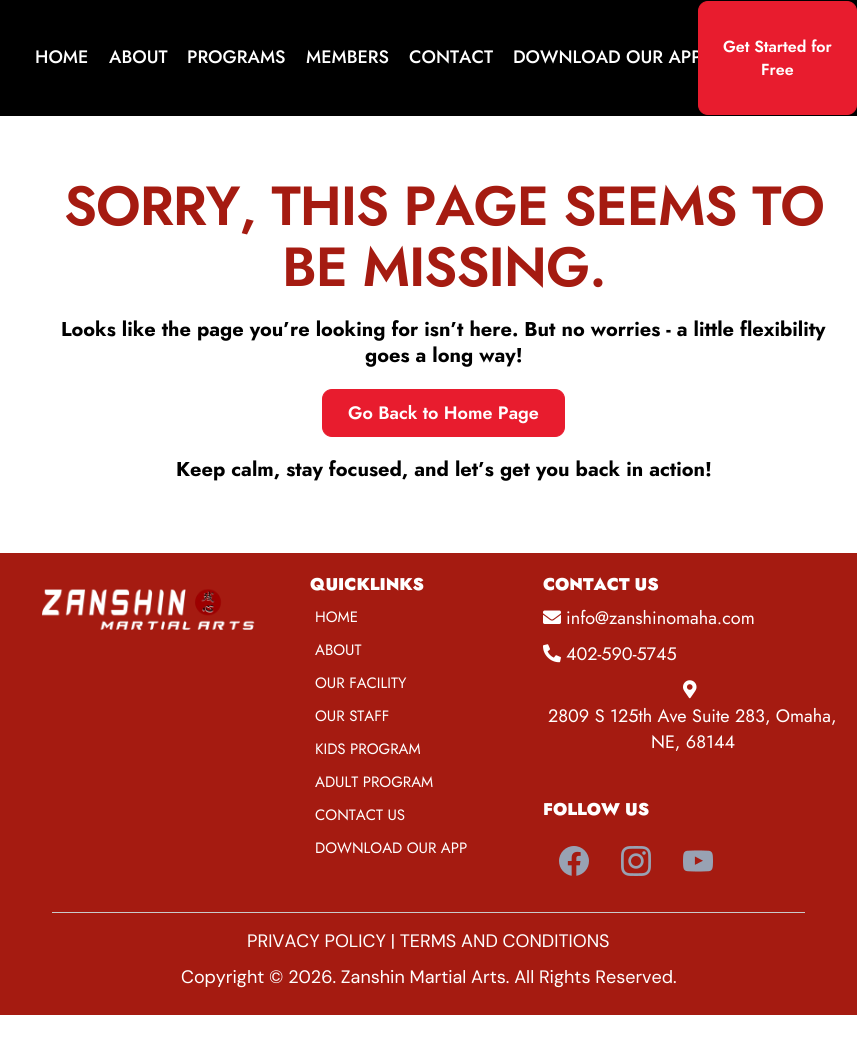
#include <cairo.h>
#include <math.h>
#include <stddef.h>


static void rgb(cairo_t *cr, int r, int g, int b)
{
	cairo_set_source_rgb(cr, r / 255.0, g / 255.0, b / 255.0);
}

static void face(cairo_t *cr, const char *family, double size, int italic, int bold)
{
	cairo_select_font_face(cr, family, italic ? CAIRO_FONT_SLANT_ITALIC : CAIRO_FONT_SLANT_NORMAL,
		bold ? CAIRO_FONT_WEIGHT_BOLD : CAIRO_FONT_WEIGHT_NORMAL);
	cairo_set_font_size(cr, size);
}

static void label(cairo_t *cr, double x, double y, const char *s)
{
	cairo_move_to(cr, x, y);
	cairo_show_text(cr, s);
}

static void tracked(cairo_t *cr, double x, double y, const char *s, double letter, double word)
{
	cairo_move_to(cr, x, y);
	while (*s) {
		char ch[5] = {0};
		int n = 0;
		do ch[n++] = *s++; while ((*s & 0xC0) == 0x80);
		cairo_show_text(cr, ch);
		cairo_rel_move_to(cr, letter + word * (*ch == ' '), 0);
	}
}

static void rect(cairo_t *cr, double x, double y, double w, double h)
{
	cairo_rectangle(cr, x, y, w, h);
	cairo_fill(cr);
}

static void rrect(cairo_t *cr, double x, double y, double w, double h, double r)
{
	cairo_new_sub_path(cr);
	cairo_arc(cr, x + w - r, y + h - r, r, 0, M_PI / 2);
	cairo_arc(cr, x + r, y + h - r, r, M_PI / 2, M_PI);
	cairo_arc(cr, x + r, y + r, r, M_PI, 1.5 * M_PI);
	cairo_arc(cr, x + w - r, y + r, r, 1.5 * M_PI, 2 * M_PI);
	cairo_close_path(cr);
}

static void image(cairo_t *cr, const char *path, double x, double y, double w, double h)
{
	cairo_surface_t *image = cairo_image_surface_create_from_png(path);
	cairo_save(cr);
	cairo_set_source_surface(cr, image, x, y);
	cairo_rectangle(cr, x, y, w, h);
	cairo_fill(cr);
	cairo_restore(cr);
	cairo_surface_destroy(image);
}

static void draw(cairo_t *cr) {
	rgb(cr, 255, 255, 255);
	cairo_paint(cr);
	rgb(cr, 0, 0, 0);
	rect(cr, 0, 0, 857, 116);
	face(cr, "Jost Medium", 18, 0, 0);
	rgb(cr, 255, 255, 255);
	label(cr, 35, 63, "HOME");
	label(cr, 109, 63, "ABOUT");
	label(cr, 187, 63, "PROGRAMS");
	label(cr, 306, 63, "MEMBERS");
	label(cr, 409, 63, "CONTACT");
	label(cr, 513, 63, "DOWNLOAD OUR APP");
	rgb(cr, 232, 28, 46);
	rrect(cr, 698.5, 1.5, 158, 113, 9.5);
	cairo_fill_preserve(cr);
	cairo_set_line_width(cr, 1);
	cairo_stroke(cr);
	face(cr, "Jost SemiBold", 16, 0, 0);
	rgb(cr, 255, 255, 255);
	label(cr, 723, 52, "Get Started for");
	label(cr, 761, 75, "Free");
	face(cr, "Jost SemiBold", 55, 0, 0);
	rgb(cr, 165, 27, 17);
	tracked(cr, 64, 225, "SORRY, THIS PAGE SEEMS TO", -1, 0);
	tracked(cr, 282, 286, "BE MISSING.", -1, 0);
	face(cr, "Jost", 20, 0, 1);
	rgb(cr, 0, 0, 0);
	label(cr, 61, 336, "Looks like the page you’re looking for isn’t here. But no worries - a little flexibility");
	label(cr, 365, 362, "goes a long way!");
	rgb(cr, 232, 28, 46);
	rrect(cr, 322.5, 389.5, 242, 47, 9.5);
	cairo_fill_preserve(cr);
	cairo_stroke(cr);
	face(cr, "Jost SemiBold", 18, 0, 0);
	rgb(cr, 255, 255, 255);
	label(cr, 348, 419, "Go Back to Home Page");
	face(cr, "Jost", 20, 0, 1);
	rgb(cr, 0, 0, 0);
	label(cr, 176, 476, "Keep calm, stay focused, and let’s get you back in action!");
	rgb(cr, 165, 27, 17);
	rect(cr, 0, 553, 857, 462);
	image(cr, "image0.png", 42, 589, 213, 41);
	face(cr, "Jost Black", 17, 0, 0);
	rgb(cr, 255, 255, 255);
	label(cr, 310, 590, "QUICKLINKS");
	face(cr, "Jost", 15, 0, 0);
	label(cr, 315, 622, "HOME");
	label(cr, 315, 655, "ABOUT");
	label(cr, 315, 688, "OUR FACILITY");
	label(cr, 315, 721, "OUR STAFF");
	label(cr, 315, 754, "KIDS PROGRAM");
	label(cr, 315, 787, "ADULT PROGRAM");
	label(cr, 315, 820, "CONTACT US");
	label(cr, 315, 853, "DOWNLOAD OUR APP");
	face(cr, "Jost Black", 17, 0, 0);
	label(cr, 543, 590, "CONTACT US");
	image(cr, "image1.png", 543, 610, 18, 14);
	face(cr, "Jost", 18, 0, 0);
	label(cr, 566, 624, "info@zanshinomaha.com");
	image(cr, "image2.png", 543, 644, 18, 19);
	label(cr, 566, 660, "402-590-5745");
	image(cr, "image3.png", 683, 680, 14, 19);
	label(cr, 548, 722, "2809 S 125th Ave Suite 283, Omaha,");
	label(cr, 651, 748, "NE, 68144");
	face(cr, "Jost Black", 17, 0, 0);
	label(cr, 543, 815, "FOLLOW US");
	image(cr, "image4.png", 559, 846, 30, 30);
	image(cr, "image5.png", 621, 846, 30, 30);
	image(cr, "image6.png", 683, 850, 30, 22);
	rgb(cr, 202, 202, 202);
	rect(cr, 52, 912, 753, 1);
	face(cr, "DM Sans", 18, 0, 0);
	rgb(cr, 255, 255, 255);
	label(cr, 247, 947, "PRIVACY POLICY | TERMS AND CONDITIONS");
	label(cr, 181, 983, "Copyright © 2026. Zanshin Martial Arts. All Rights Reserved.");
}

int main(void) {
	cairo_surface_t *surface = cairo_image_surface_create(CAIRO_FORMAT_RGB24, 857, 1049);
	cairo_t *cr = cairo_create(surface);
	cairo_font_options_t *options = cairo_font_options_create();
	cairo_font_options_set_hint_metrics(options, CAIRO_HINT_METRICS_OFF);
	cairo_font_options_set_hint_style(options, CAIRO_HINT_STYLE_NONE);
	cairo_set_font_options(cr, options);
	cairo_set_miter_limit(cr, 4);
	draw(cr);
	cairo_surface_write_to_png(surface, "render.png");
	cairo_font_options_destroy(options);
	cairo_destroy(cr);
	cairo_surface_destroy(surface);
	return 0;
}
